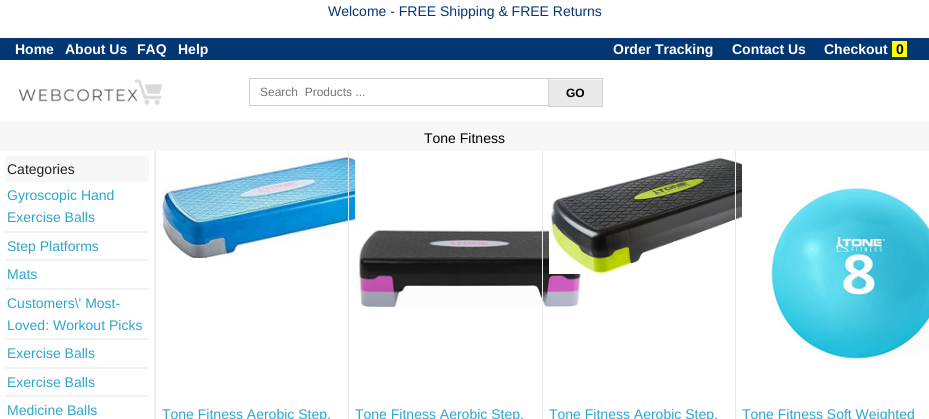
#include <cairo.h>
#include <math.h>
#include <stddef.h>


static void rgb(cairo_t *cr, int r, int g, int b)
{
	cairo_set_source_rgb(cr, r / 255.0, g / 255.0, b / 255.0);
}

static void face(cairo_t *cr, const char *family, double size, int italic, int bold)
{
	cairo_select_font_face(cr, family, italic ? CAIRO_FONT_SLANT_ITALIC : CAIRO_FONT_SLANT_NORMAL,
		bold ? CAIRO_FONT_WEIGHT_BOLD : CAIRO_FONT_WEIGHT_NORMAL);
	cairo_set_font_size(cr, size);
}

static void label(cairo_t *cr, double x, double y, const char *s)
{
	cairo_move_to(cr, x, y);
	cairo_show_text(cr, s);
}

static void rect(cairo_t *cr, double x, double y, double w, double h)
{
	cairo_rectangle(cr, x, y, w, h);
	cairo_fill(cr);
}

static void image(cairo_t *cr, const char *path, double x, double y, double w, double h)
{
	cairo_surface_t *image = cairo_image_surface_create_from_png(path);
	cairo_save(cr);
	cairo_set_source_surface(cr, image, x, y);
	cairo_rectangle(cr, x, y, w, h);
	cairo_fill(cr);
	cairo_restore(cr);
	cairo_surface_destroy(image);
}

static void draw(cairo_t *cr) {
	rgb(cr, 255, 255, 255);
	cairo_paint(cr);
	face(cr, "Liberation Sans", 14, 0, 0);
	rgb(cr, 2, 55, 115);
	label(cr, 328, 16, "Welcome - FREE Shipping & FREE Returns");
	rect(cr, 0, 38, 929, 22);
	face(cr, "Liberation Sans", 14, 0, 1);
	rgb(cr, 255, 255, 255);
	label(cr, 15, 54, "Home");
	label(cr, 65, 54, "About Us");
	label(cr, 137, 54, "FAQ");
	label(cr, 178, 54, "Help");
	label(cr, 613, 54, "Order Tracking");
	label(cr, 732, 54, "Contact Us");
	label(cr, 824, 54, "Checkout");
	rgb(cr, 255, 255, 0);
	rect(cr, 892, 41, 15, 16);
	rgb(cr, 0, 0, 0);
	label(cr, 896, 54, "0");
	image(cr, "image0.png", 18, 79, 144, 26);
	cairo_rectangle(cr, 249.5, 78.5, 299, 27);
	rgb(cr, 204, 204, 204);
	cairo_set_line_width(cr, 1);
	cairo_stroke(cr);
	face(cr, "Liberation Sans", 12, 0, 0);
	rgb(cr, 117, 117, 117);
	label(cr, 260, 96, "Search  Products ...");
	rgb(cr, 233, 233, 233);
	rect(cr, 549, 80, 53, 26);
	rgb(cr, 244, 244, 244);
	rect(cr, 549, 79, 53, 1);
	cairo_rectangle(cr, 548.5, 78.5, 54, 28);
	rgb(cr, 208, 208, 208);
	cairo_stroke(cr);
	face(cr, "Liberation Sans", 12, 0, 1);
	rgb(cr, 0, 0, 0);
	label(cr, 566, 97, "GO");
	rgb(cr, 247, 247, 247);
	rect(cr, 0, 123, 929, 28);
	rgb(cr, 242, 242, 242);
	rect(cr, 0, 122, 929, 1);
	face(cr, "Liberation Sans", 14, 0, 0);
	rgb(cr, 0, 0, 0);
	label(cr, 424, 143, "Tone Fitness");
	rgb(cr, 242, 242, 242);
	rect(cr, 154, 151, 1, 268);
	rgb(cr, 247, 247, 247);
	rect(cr, 5, 156, 144, 26);
	rgb(cr, 34, 34, 34);
	label(cr, 7, 174, "Categories");
	rgb(cr, 242, 242, 242);
	rect(cr, 5, 231, 144, 2);
	rgb(cr, 43, 166, 203);
	label(cr, 7, 200, "Gyroscopic Hand");
	label(cr, 7, 222, "Exercise Balls");
	rgb(cr, 242, 242, 242);
	rect(cr, 5, 259, 144, 2);
	rgb(cr, 43, 166, 203);
	label(cr, 7, 251, "Step Platforms");
	rgb(cr, 242, 242, 242);
	rect(cr, 5, 288, 144, 2);
	rgb(cr, 43, 166, 203);
	label(cr, 7, 279, "Mats");
	rgb(cr, 242, 242, 242);
	rect(cr, 5, 338, 144, 2);
	rgb(cr, 43, 166, 203);
	label(cr, 7, 308, "Customers\\' Most-");
	label(cr, 7, 330, "Loved: Workout Picks");
	rgb(cr, 242, 242, 242);
	rect(cr, 5, 367, 144, 2);
	rgb(cr, 43, 166, 203);
	label(cr, 7, 358, "Exercise Balls");
	rgb(cr, 242, 242, 242);
	rect(cr, 5, 395, 144, 2);
	rgb(cr, 43, 166, 203);
	label(cr, 7, 387, "Exercise Balls");
	label(cr, 7, 415, "Medicine Balls");
	rgb(cr, 233, 233, 233);
	rect(cr, 155, 151, 1, 268);
	image(cr, "image1.png", 162, 157, 193, 101);
	rgb(cr, 43, 166, 203);
	label(cr, 162, 419, "Tone Fitness Aerobic Step,");
	rgb(cr, 233, 233, 233);
	rect(cr, 348, 151, 1, 268);
	image(cr, "image2.png", 355, 157, 228, 151);
	rgb(cr, 43, 166, 203);
	label(cr, 355, 419, "Tone Fitness Aerobic Step,");
	rgb(cr, 233, 233, 233);
	rect(cr, 542, 151, 1, 268);
	image(cr, "image3.png", 549, 158, 229, 116);
	rgb(cr, 43, 166, 203);
	label(cr, 549, 419, "Tone Fitness Aerobic Step,");
	rgb(cr, 233, 233, 233);
	rect(cr, 735, 151, 1, 268);
	image(cr, "image4.png", 742, 163, 187, 200);
	rgb(cr, 43, 166, 203);
	label(cr, 742, 419, "Tone Fitness Soft Weighted");
}

int main(void) {
	cairo_surface_t *surface = cairo_image_surface_create(CAIRO_FORMAT_RGB24, 929, 419);
	cairo_t *cr = cairo_create(surface);
	cairo_font_options_t *options = cairo_font_options_create();
	cairo_font_options_set_hint_metrics(options, CAIRO_HINT_METRICS_OFF);
	cairo_font_options_set_hint_style(options, CAIRO_HINT_STYLE_NONE);
	cairo_set_font_options(cr, options);
	cairo_set_miter_limit(cr, 4);
	draw(cr);
	cairo_surface_write_to_png(surface, "render.png");
	cairo_font_options_destroy(options);
	cairo_destroy(cr);
	cairo_surface_destroy(surface);
	return 0;
}
